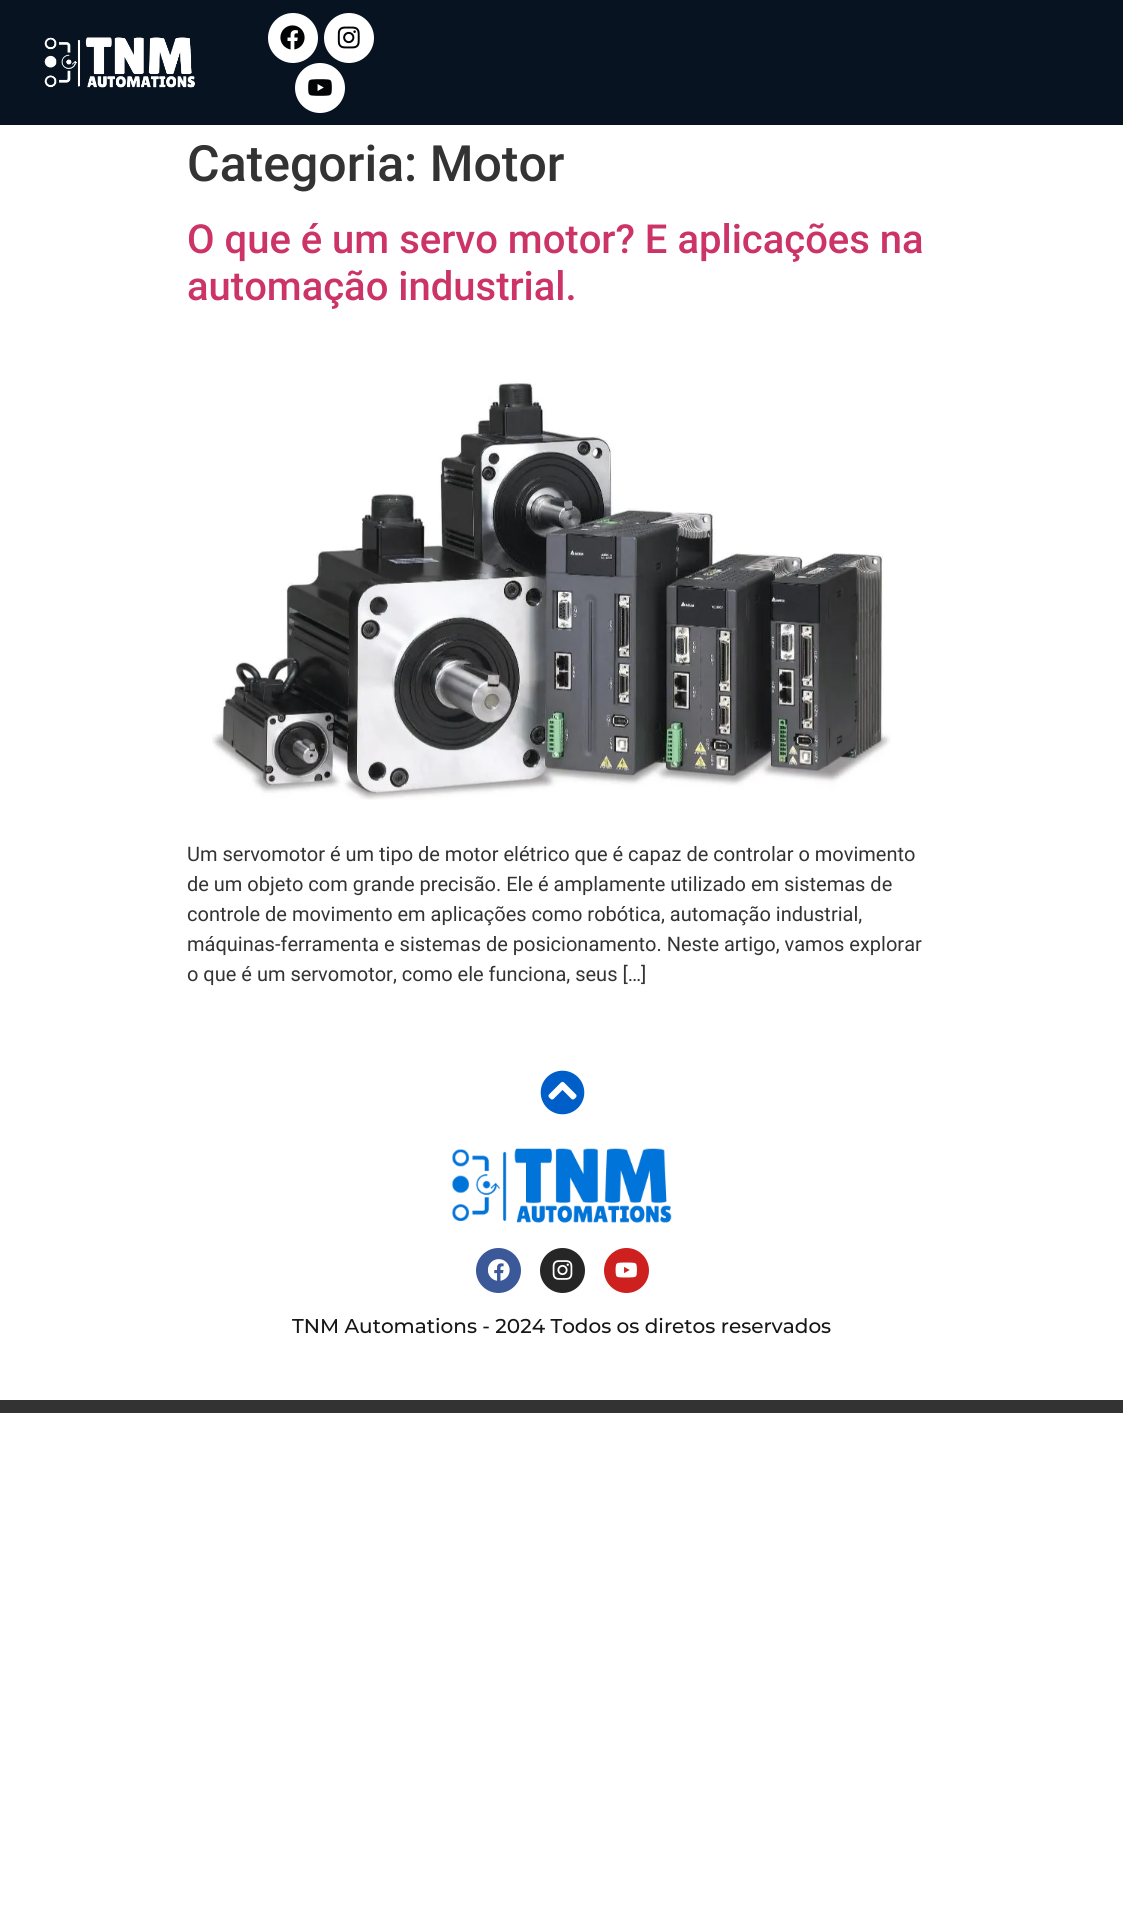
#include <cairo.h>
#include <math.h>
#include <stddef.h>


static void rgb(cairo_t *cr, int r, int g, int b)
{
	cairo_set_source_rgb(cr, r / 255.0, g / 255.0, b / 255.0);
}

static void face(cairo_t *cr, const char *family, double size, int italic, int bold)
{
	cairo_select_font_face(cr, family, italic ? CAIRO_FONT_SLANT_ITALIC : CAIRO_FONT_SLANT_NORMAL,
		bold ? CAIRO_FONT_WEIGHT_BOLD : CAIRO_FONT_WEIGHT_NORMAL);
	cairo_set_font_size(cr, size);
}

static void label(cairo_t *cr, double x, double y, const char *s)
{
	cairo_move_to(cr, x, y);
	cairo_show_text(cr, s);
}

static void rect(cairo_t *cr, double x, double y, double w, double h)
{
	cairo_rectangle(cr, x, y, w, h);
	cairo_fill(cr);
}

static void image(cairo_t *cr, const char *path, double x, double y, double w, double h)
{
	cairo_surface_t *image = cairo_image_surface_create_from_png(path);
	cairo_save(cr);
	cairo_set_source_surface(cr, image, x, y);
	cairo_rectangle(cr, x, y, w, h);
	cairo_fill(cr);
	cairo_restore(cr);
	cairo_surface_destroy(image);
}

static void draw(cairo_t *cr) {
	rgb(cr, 255, 255, 255);
	cairo_paint(cr);
	rgb(cr, 7, 19, 32);
	rect(cr, 0, 0, 1123, 125);
	image(cr, "image0.png", 44, 37, 151, 51);
	rgb(cr, 255, 255, 255);
	cairo_arc(cr, 293, 38, 25, 0, 2 * M_PI);
	cairo_fill(cr);
	image(cr, "image1.png", 280, 25, 25, 25);
	cairo_arc(cr, 349, 38, 25, 0, 2 * M_PI);
	cairo_fill(cr);
	image(cr, "image2.png", 337, 26, 23, 23);
	cairo_arc(cr, 320, 88, 25, 0, 2 * M_PI);
	cairo_fill(cr);
	image(cr, "image3.png", 308, 79, 24, 17);
	face(cr, "Roboto Medium", 50, 0, 0);
	rgb(cr, 51, 51, 51);
	label(cr, 187, 181, "Categoria: Motor");
	face(cr, "Roboto Medium", 40, 0, 0);
	rgb(cr, 204, 51, 102);
	label(cr, 187, 253, "O que é um servo motor? E aplicações na");
	label(cr, 187, 300, "automação industrial.");
	image(cr, "image4.png", 212, 382, 679, 418);
	face(cr, "Roboto", 20, 0, 0);
	rgb(cr, 51, 51, 51);
	label(cr, 187, 861, "Um servomotor é um tipo de motor elétrico que é capaz de controlar o movimento");
	label(cr, 187, 891, "de um objeto com grande precisão. Ele é amplamente utilizado em sistemas de");
	label(cr, 187, 921, "controle de movimento em aplicações como robótica, automação industrial,");
	label(cr, 187, 951, "máquinas-ferramenta e sistemas de posicionamento. Neste artigo, vamos explorar");
	label(cr, 187, 981, "o que é um servomotor, como ele funciona, seus […]");
	rect(cr, 0, 1400, 1123, 13);
	image(cr, "image5.png", 540, 1070, 45, 45);
	image(cr, "image6.png", 452, 1148, 220, 75);
	rgb(cr, 59, 89, 152);
	cairo_arc(cr, 498.5, 1270.5, 22.5, 0, 2 * M_PI);
	cairo_fill(cr);
	image(cr, "image7.png", 488, 1259, 22, 22);
	rgb(cr, 38, 38, 38);
	cairo_arc(cr, 562.5, 1270.5, 22.5, 0, 2 * M_PI);
	cairo_fill(cr);
	image(cr, "image8.png", 552, 1260, 21, 20);
	rgb(cr, 205, 32, 31);
	cairo_arc(cr, 626.5, 1270.5, 22.5, 0, 2 * M_PI);
	cairo_fill(cr);
	image(cr, "image9.png", 615, 1262, 22, 16);
	face(cr, "Montserrat Medium", 20, 0, 0);
	rgb(cr, 23, 23, 23);
	label(cr, 292, 1333, "TNM Automations - 2024 Todos os diretos reservados");
}

int main(void) {
	cairo_surface_t *surface = cairo_image_surface_create(CAIRO_FORMAT_RGB24, 1123, 1923);
	cairo_t *cr = cairo_create(surface);
	cairo_font_options_t *options = cairo_font_options_create();
	cairo_font_options_set_hint_metrics(options, CAIRO_HINT_METRICS_OFF);
	cairo_font_options_set_hint_style(options, CAIRO_HINT_STYLE_NONE);
	cairo_set_font_options(cr, options);
	cairo_set_miter_limit(cr, 4);
	draw(cr);
	cairo_surface_write_to_png(surface, "render.png");
	cairo_font_options_destroy(options);
	cairo_destroy(cr);
	cairo_surface_destroy(surface);
	return 0;
}
